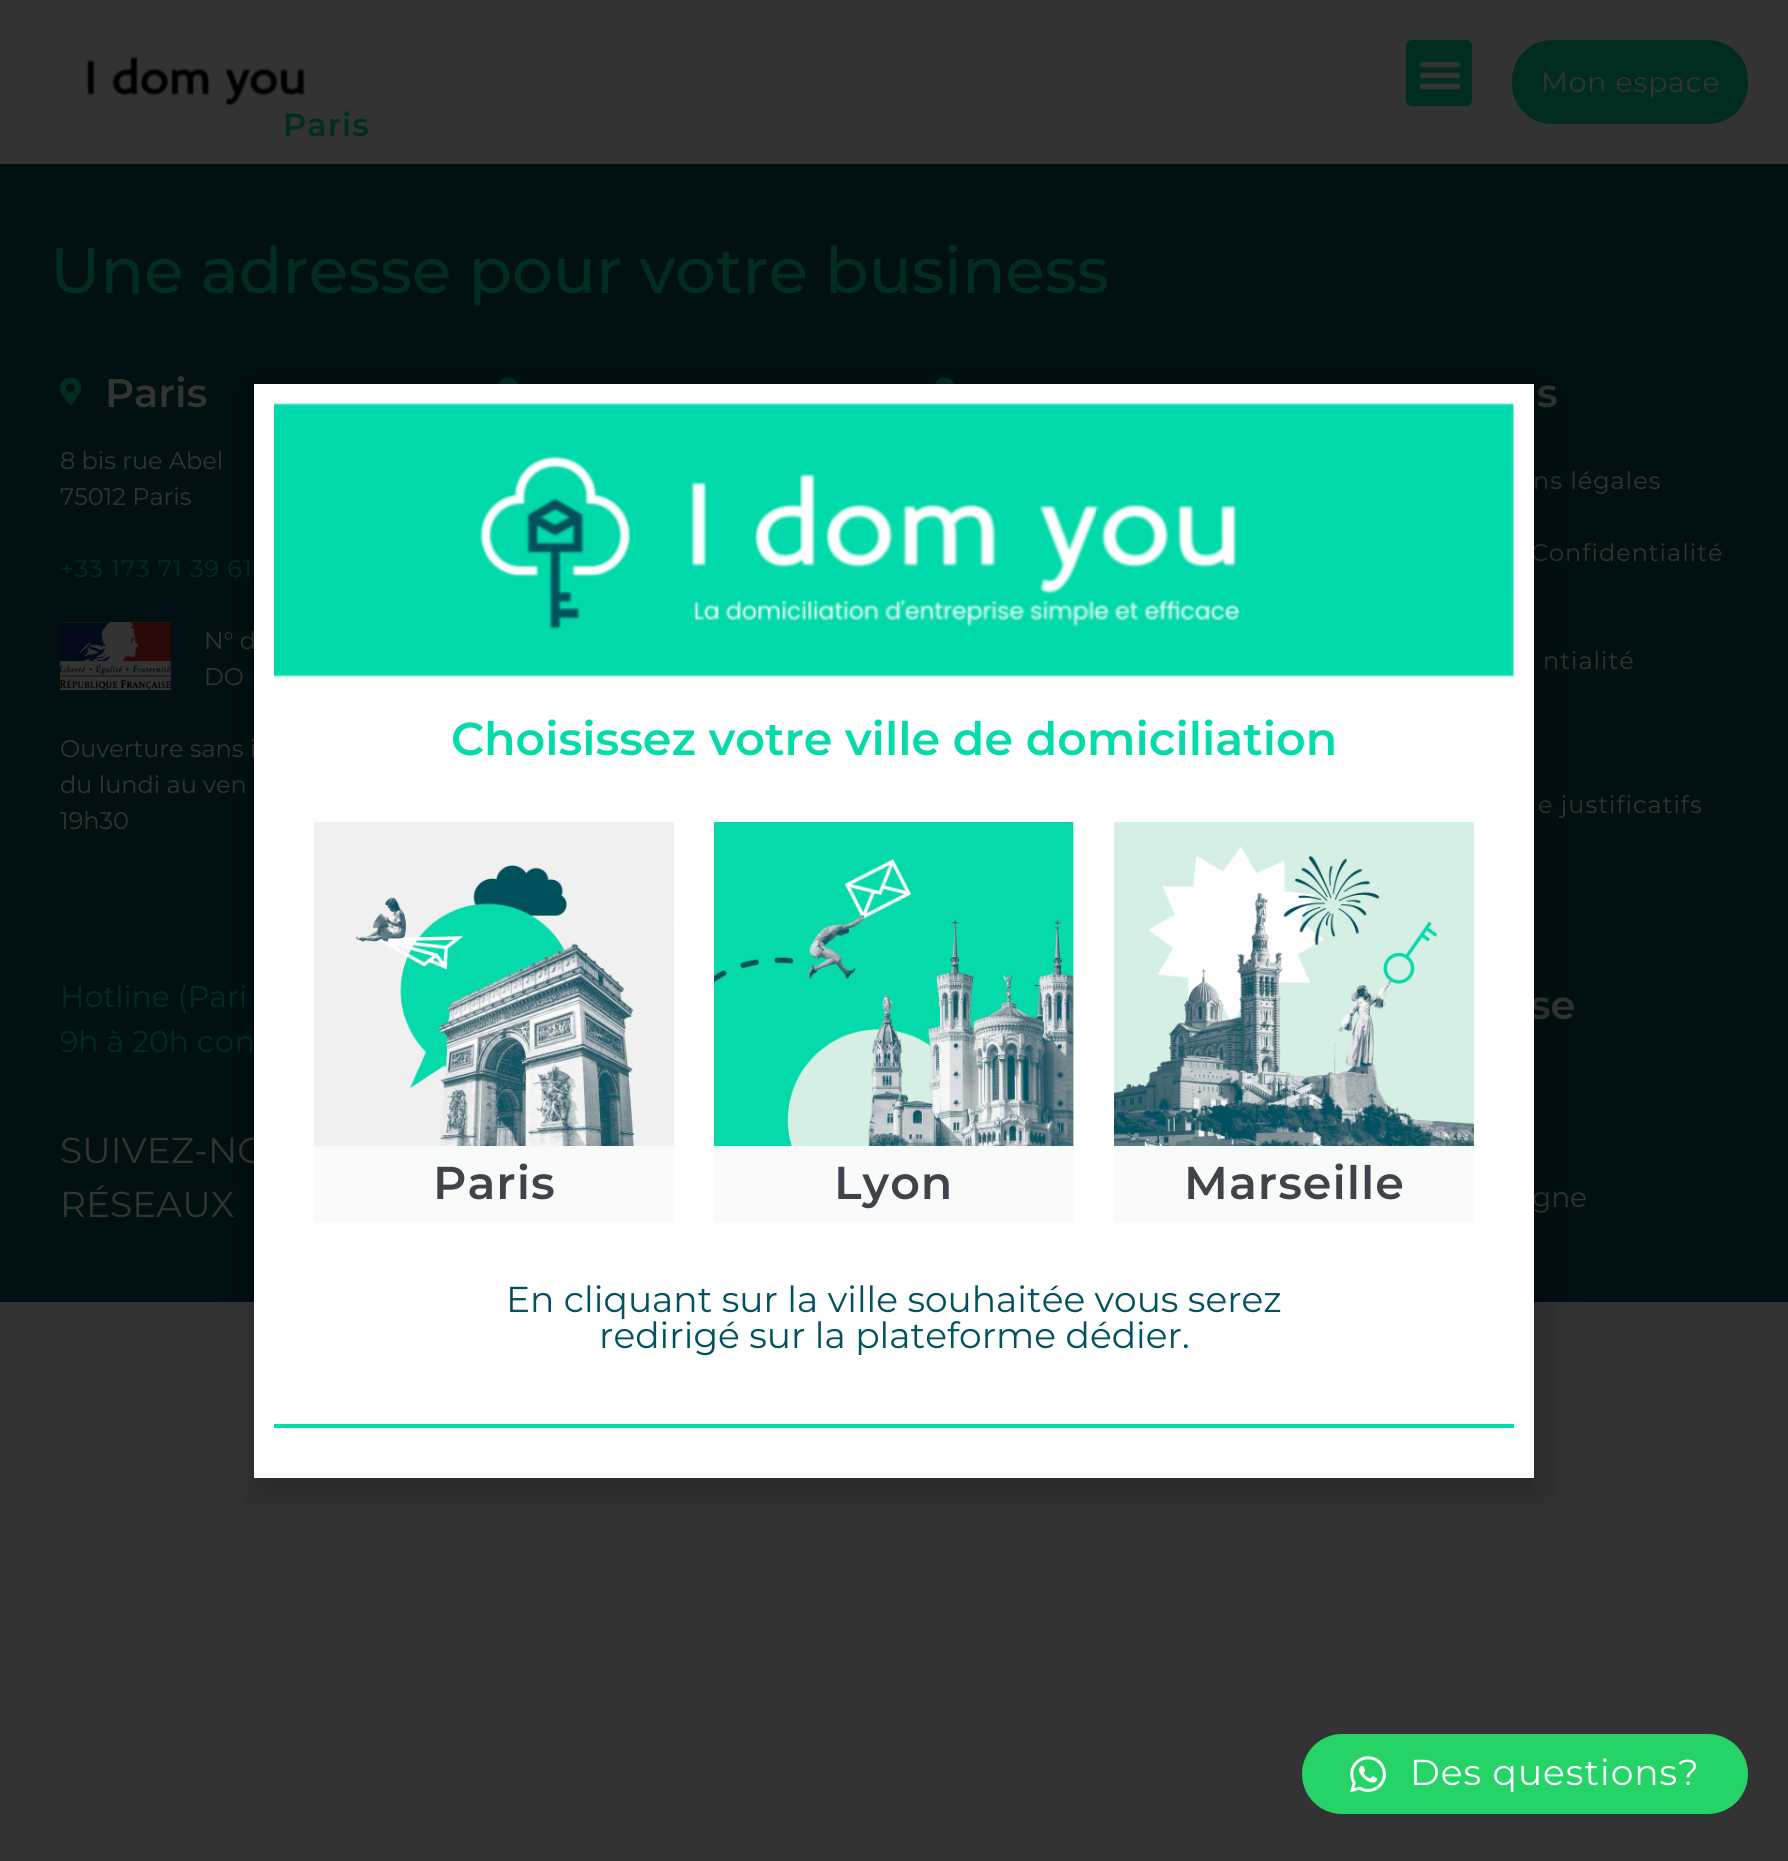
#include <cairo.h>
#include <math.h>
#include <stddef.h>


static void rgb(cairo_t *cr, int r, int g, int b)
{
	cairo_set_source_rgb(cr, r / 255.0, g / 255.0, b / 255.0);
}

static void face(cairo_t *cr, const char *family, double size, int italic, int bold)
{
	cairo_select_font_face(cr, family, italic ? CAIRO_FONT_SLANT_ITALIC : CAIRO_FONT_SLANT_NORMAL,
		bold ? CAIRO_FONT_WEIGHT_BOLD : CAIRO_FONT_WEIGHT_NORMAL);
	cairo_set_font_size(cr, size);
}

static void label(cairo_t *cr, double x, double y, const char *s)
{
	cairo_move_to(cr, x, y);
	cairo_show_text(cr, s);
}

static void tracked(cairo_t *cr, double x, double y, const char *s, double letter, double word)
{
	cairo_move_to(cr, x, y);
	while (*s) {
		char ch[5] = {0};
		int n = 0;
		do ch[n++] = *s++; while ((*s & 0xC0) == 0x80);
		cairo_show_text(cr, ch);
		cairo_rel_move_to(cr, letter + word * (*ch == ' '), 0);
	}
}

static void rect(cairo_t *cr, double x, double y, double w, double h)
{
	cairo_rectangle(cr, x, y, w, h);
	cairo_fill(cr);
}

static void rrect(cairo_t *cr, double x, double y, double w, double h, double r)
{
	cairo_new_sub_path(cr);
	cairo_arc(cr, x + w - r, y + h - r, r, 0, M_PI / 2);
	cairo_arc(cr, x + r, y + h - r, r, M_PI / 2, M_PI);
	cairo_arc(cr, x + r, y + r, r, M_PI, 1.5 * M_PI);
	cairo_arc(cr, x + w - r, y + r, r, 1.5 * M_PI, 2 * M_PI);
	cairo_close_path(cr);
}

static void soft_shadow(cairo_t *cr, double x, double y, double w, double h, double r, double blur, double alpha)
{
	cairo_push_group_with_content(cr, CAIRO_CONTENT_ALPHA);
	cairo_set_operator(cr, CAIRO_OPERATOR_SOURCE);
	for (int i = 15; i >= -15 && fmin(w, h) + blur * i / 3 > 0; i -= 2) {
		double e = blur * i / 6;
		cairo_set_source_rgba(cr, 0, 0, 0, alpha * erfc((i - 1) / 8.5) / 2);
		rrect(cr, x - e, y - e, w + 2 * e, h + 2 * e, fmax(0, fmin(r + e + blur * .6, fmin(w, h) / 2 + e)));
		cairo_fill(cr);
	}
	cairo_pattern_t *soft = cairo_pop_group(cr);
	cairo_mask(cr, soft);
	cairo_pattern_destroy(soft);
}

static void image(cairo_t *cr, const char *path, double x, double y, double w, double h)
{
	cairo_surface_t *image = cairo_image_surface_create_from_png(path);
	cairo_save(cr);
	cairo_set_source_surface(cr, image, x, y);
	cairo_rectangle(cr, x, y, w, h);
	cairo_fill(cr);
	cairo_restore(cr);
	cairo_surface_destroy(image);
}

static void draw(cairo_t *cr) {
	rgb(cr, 51, 51, 51);
	cairo_paint(cr);
	rgb(cr, 1, 44, 34);
	rrect(cr, 1406, 40, 66, 66, 6);
	cairo_fill(cr);
	image(cr, "image0.png", 1419, 61, 42, 29);
	rrect(cr, 1513, 41, 234, 82, 39);
	cairo_fill_preserve(cr);
	cairo_stroke(cr);
	face(cr, "Montserrat", 28, 0, 0);
	rgb(cr, 51, 51, 51);
	tracked(cr, 1541, 92, "Mon espace", 1, 0);
	image(cr, "image1.png", 86, 56, 220, 50);
	face(cr, "Montserrat SemiBold", 32, 0, 0);
	rgb(cr, 1, 44, 34);
	tracked(cr, 283, 136, "Paris", 1, 0);
	rgb(cr, 0, 16, 19);
	rect(cr, 0, 164, 1788, 1138);
	face(cr, "Montserrat Medium", 64, 0, 0);
	rgb(cr, 1, 44, 34);
	label(cr, 50, 293, "Une adresse pour votre business");
	image(cr, "image2.png", 60, 377, 21, 29);
	face(cr, "Montserrat SemiBold", 40, 0, 0);
	rgb(cr, 51, 51, 51);
	label(cr, 105, 407, "Paris");
	face(cr, "Montserrat", 24, 0, 0);
	label(cr, 60, 469, "8 bis rue Abel");
	label(cr, 60, 505, "75012 Paris");
	rgb(cr, 1, 44, 34);
	tracked(cr, 60, 577, "+33 173 71 39 61", 1, 0);
	image(cr, "image3.png", 60, 622, 112, 68);
	rgb(cr, 51, 51, 51);
	label(cr, 204, 649, "N° d");
	label(cr, 204, 685, "DO");
	label(cr, 60, 757, "Ouverture sans i");
	label(cr, 60, 793, "du lundi au ven");
	label(cr, 60, 829, "19h30");
	image(cr, "image4.png", 498, 377, 21, 7);
	image(cr, "image4.png", 934, 377, 21, 7);
	face(cr, "Montserrat SemiBold", 40, 0, 0);
	label(cr, 1537, 407, "s");
	face(cr, "Montserrat", 24, 0, 0);
	tracked(cr, 1533, 489, "ns légales", 1, 0);
	tracked(cr, 1531, 561, "Confidentialité", 1, 0);
	tracked(cr, 1543, 669, "ntialité", 1, 0);
	tracked(cr, 1538, 813, "e justificatifs", 1, 0);
	face(cr, "Montserrat", 30, 0, 0);
	rgb(cr, 1, 44, 34);
	label(cr, 60, 1007, "Hotline (Pari");
	label(cr, 60, 1052, "9h à 20h");
	tracked(cr, 197, 1052, "con", 1, 0);
	face(cr, "Montserrat", 36, 0, 0);
	rgb(cr, 51, 51, 51);
	label(cr, 60, 1163, "SUIVEZ-NO");
	label(cr, 60, 1217, "RÉSEAUX");
	face(cr, "Montserrat SemiBold", 40, 0, 0);
	label(cr, 1530, 1019, "se");
	face(cr, "Montserrat", 28, 0, 0);
	label(cr, 1532, 1207, "gne");
	rgb(cr, 0, 0, 0);
	soft_shadow(cr, 252, 394, 1292, 1106, 0, 23, 0.2);
	rgb(cr, 255, 255, 255);
	rect(cr, 254, 384, 1280, 1094);
	image(cr, "image5.png", 274, 403, 1240, 275);
	face(cr, "Montserrat SemiBold", 46, 0, 0);
	rgb(cr, 4, 219, 171);
	label(cr, 451, 755, "Choisissez votre ville de domiciliation");
	image(cr, "image6.png", 314, 822, 360, 324);
	rgb(cr, 249, 250, 250);
	rect(cr, 314, 1146, 360, 76);
	rgb(cr, 63, 68, 75);
	tracked(cr, 433, 1199, "Paris", 1, 0);
	image(cr, "image7.png", 714, 822, 360, 324);
	rgb(cr, 249, 250, 250);
	rect(cr, 714, 1146, 360, 76);
	rgb(cr, 63, 68, 75);
	tracked(cr, 834, 1199, "Lyon", 1, 0);
	image(cr, "image8.png", 1114, 822, 360, 324);
	rgb(cr, 249, 250, 250);
	rect(cr, 1114, 1146, 360, 76);
	rgb(cr, 63, 68, 75);
	tracked(cr, 1184, 1199, "Marseille", 1, 0);
	face(cr, "Montserrat", 36, 0, 0);
	rgb(cr, 0, 82, 94);
	label(cr, 506, 1312, "En cliquant sur la ville souhaitée vous serez");
	label(cr, 599, 1348, "redirigé sur la plateforme dédier.");
	rgb(cr, 4, 219, 171);
	rect(cr, 274, 1424, 1240, 4);
	rgb(cr, 37, 211, 102);
	rrect(cr, 1302, 1734, 446, 80, 40);
	cairo_fill(cr);
	image(cr, "image9.png", 1350, 1756, 36, 37);
	rgb(cr, 255, 255, 255);
	tracked(cr, 1410, 1785, "Des questions?", 1, 0);
}

int main(void) {
	cairo_surface_t *surface = cairo_image_surface_create(CAIRO_FORMAT_RGB24, 1788, 1861);
	cairo_t *cr = cairo_create(surface);
	cairo_font_options_t *options = cairo_font_options_create();
	cairo_font_options_set_hint_metrics(options, CAIRO_HINT_METRICS_OFF);
	cairo_font_options_set_hint_style(options, CAIRO_HINT_STYLE_NONE);
	cairo_set_font_options(cr, options);
	cairo_set_miter_limit(cr, 4);
	draw(cr);
	cairo_surface_write_to_png(surface, "render.png");
	cairo_font_options_destroy(options);
	cairo_destroy(cr);
	cairo_surface_destroy(surface);
	return 0;
}
